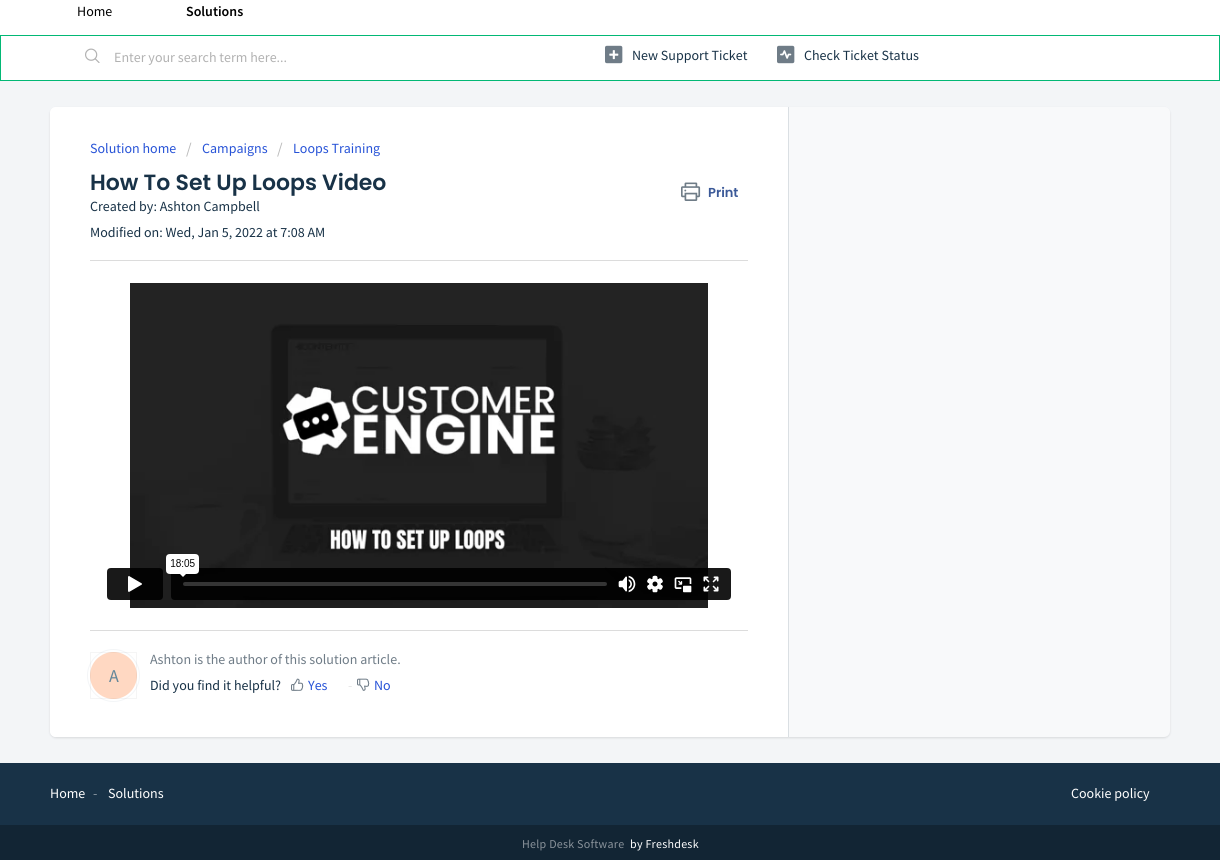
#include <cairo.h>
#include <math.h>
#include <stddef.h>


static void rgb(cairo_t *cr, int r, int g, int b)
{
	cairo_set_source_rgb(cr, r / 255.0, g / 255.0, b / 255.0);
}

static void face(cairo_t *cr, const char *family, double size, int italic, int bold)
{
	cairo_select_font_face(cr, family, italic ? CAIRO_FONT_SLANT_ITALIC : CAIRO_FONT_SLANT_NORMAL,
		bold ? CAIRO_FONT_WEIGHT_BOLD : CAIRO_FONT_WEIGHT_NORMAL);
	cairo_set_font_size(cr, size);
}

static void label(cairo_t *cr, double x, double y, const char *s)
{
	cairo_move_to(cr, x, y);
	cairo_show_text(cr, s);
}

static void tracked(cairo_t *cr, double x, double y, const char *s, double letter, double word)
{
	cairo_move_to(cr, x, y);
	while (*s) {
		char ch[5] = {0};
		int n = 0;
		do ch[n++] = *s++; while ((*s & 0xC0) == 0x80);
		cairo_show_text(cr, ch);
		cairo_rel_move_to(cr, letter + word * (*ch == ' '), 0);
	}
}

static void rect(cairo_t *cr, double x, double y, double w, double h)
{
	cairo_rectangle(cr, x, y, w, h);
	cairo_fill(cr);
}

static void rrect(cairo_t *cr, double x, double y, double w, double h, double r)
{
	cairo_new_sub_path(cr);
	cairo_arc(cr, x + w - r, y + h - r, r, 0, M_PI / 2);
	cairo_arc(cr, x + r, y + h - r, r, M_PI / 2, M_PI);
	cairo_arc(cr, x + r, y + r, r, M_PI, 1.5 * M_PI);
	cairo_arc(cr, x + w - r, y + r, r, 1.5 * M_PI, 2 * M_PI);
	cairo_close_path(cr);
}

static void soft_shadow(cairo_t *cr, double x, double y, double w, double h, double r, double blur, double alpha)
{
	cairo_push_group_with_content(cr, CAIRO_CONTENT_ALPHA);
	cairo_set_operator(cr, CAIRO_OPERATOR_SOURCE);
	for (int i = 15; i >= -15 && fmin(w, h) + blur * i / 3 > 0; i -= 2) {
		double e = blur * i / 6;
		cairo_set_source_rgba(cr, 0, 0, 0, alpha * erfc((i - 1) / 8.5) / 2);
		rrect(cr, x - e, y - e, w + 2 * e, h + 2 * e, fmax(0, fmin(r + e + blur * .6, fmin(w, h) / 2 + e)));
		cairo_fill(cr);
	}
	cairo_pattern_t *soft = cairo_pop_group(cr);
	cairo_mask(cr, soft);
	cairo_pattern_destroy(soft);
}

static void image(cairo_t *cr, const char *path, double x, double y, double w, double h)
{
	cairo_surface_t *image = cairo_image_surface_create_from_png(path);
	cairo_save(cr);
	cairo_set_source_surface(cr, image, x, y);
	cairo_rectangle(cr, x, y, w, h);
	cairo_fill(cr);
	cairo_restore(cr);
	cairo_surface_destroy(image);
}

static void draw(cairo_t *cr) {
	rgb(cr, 243, 245, 247);
	cairo_paint(cr);
	rgb(cr, 255, 255, 255);
	rect(cr, 0, 0, 1220, 35);
	face(cr, "Source Sans Pro", 14, 0, 0);
	rgb(cr, 0, 0, 0);
	label(cr, 77, 16, "Home");
	face(cr, "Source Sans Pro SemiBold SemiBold", 14, 0, 0);
	label(cr, 186, 16, "Solutions");
	rgb(cr, 255, 255, 255);
	cairo_rectangle(cr, 0.5, 35.5, 1219, 45);
	cairo_fill_preserve(cr);
	rgb(cr, 2, 184, 117);
	cairo_set_line_width(cr, 1);
	cairo_stroke(cr);
	image(cr, "image0.png", 85, 48, 15, 15);
	face(cr, "Source Sans Pro", 14, 0, 0);
	rgb(cr, 178, 178, 178);
	label(cr, 114, 62, "Enter your search term here...");
	image(cr, "image1.png", 605, 45, 18, 19);
	rgb(cr, 24, 50, 71);
	label(cr, 632, 60, "New Support Ticket");
	image(cr, "image2.png", 777, 45, 18, 19);
	label(cr, 804, 60, "Check Ticket Status");
	rgb(cr, 63, 63, 68);
	soft_shadow(cr, 50, 108, 1120, 630, 6, 1, 0.15);
	rgb(cr, 248, 249, 250);
	rrect(cr, 50, 107, 1120, 630, 6);
	cairo_fill(cr);
	cairo_new_path(cr);
	cairo_move_to(cr, 789, 107);
	cairo_line_to(cr, 1164, 107);
	cairo_curve_to(cr, 1167.5, 107, 1170, 109.5, 1170, 113);
	cairo_line_to(cr, 1170, 121);
	cairo_curve_to(cr, 1170, 124.5, 1167.5, 127, 1164, 127);
	cairo_line_to(cr, 789, 127);
	cairo_close_path(cr);
	cairo_fill(cr);
	rgb(cr, 255, 255, 255);
	cairo_new_path(cr);
	cairo_move_to(cr, 56, 107);
	cairo_line_to(cr, 789, 107);
	cairo_line_to(cr, 789, 737);
	cairo_line_to(cr, 56, 737);
	cairo_curve_to(cr, 52.5, 737, 50, 734.5, 50, 731);
	cairo_line_to(cr, 50, 113);
	cairo_curve_to(cr, 50, 109.5, 52.5, 107, 56, 107);
	cairo_close_path(cr);
	cairo_fill(cr);
	rgb(cr, 218, 223, 227);
	rect(cr, 788, 107, 1, 630);
	rgb(cr, 39, 83, 215);
	label(cr, 90, 153, "Solution home");
	face(cr, "Source Sans Pro", 16, 0, 0);
	rgb(cr, 187, 187, 187);
	label(cr, 186, 154, "/");
	face(cr, "Source Sans Pro", 14, 0, 0);
	rgb(cr, 39, 83, 215);
	label(cr, 202, 153, "Campaigns");
	face(cr, "Source Sans Pro", 16, 0, 0);
	rgb(cr, 187, 187, 187);
	label(cr, 277, 154, "/");
	face(cr, "Source Sans Pro", 14, 0, 0);
	rgb(cr, 39, 83, 215);
	label(cr, 293, 153, "Loops Training");
	face(cr, "Poppins SemiBold", 22, 0, 0);
	rgb(cr, 24, 50, 71);
	label(cr, 90, 190, "How To Set Up Loops Video");
	image(cr, "image3.png", 681, 182, 20, 19);
	face(cr, "Poppins SemiBold", 13, 0, 0);
	rgb(cr, 59, 89, 152);
	label(cr, 708, 197, "Print");
	face(cr, "Source Sans Pro", 14, 0, 0);
	rgb(cr, 24, 50, 71);
	label(cr, 90, 211, "Created by: Ashton Campbell");
	label(cr, 90, 237, "Modified on: Wed, Jan 5, 2022 at 7:08 AM");
	rgb(cr, 220, 220, 220);
	rect(cr, 90, 260, 658, 1);
	image(cr, "image4.png", 107, 283, 624, 325);
	rect(cr, 90, 630, 658, 1);
	rgb(cr, 111, 124, 135);
	label(cr, 150, 664, "Ashton is the author of this solution article.");
	cairo_new_path(cr);
	cairo_arc(cr, 113.5, 675.5, 26, 0, 2 * M_PI);
	rgb(cr, 243, 245, 247);
	cairo_stroke(cr);
	rgb(cr, 255, 216, 194);
	cairo_arc(cr, 113.5, 675.5, 23.5, 0, 2 * M_PI);
	cairo_fill(cr);
	cairo_rectangle(cr, 90.5, 652.5, 46, 46);
	cairo_set_source_rgba(cr, 0, 0, 0, 0.04);
	cairo_stroke(cr);
	face(cr, "Source Sans Pro", 18, 0, 0);
	rgb(cr, 99, 134, 153);
	label(cr, 109, 682, "A");
	face(cr, "Source Sans Pro", 14, 0, 0);
	rgb(cr, 24, 50, 71);
	label(cr, 150, 690, "Did you find it helpful?");
	image(cr, "image5.png", 291, 678, 13, 13);
	rgb(cr, 39, 83, 215);
	label(cr, 308, 690, "Yes");
	rgb(cr, 229, 229, 229);
	label(cr, 348, 690, "-");
	image(cr, "image6.png", 357, 678, 13, 13);
	rgb(cr, 39, 83, 215);
	label(cr, 374, 690, "No");
	rgb(cr, 24, 50, 71);
	rect(cr, 0, 763, 1220, 62);
	rgb(cr, 255, 255, 255);
	label(cr, 50, 798, "Home");
	rgb(cr, 140, 153, 163);
	label(cr, 93, 798, "-");
	rgb(cr, 255, 255, 255);
	label(cr, 108, 798, "Solutions");
	label(cr, 1071, 798, "Cookie policy");
	rgb(cr, 18, 37, 52);
	rect(cr, 0, 825, 1220, 35);
	face(cr, "Source Sans Pro", 12, 0, 0);
	rgb(cr, 137, 146, 154);
	tracked(cr, 522, 848, "Help Desk Software", 0.25, 0);
	rgb(cr, 255, 255, 255);
	tracked(cr, 630, 848, "by Freshdesk", 0.25, 0);
}

int main(void) {
	cairo_surface_t *surface = cairo_image_surface_create(CAIRO_FORMAT_RGB24, 1220, 860);
	cairo_t *cr = cairo_create(surface);
	cairo_font_options_t *options = cairo_font_options_create();
	cairo_font_options_set_hint_metrics(options, CAIRO_HINT_METRICS_OFF);
	cairo_font_options_set_hint_style(options, CAIRO_HINT_STYLE_NONE);
	cairo_set_font_options(cr, options);
	cairo_set_miter_limit(cr, 4);
	draw(cr);
	cairo_surface_write_to_png(surface, "render.png");
	cairo_font_options_destroy(options);
	cairo_destroy(cr);
	cairo_surface_destroy(surface);
	return 0;
}
